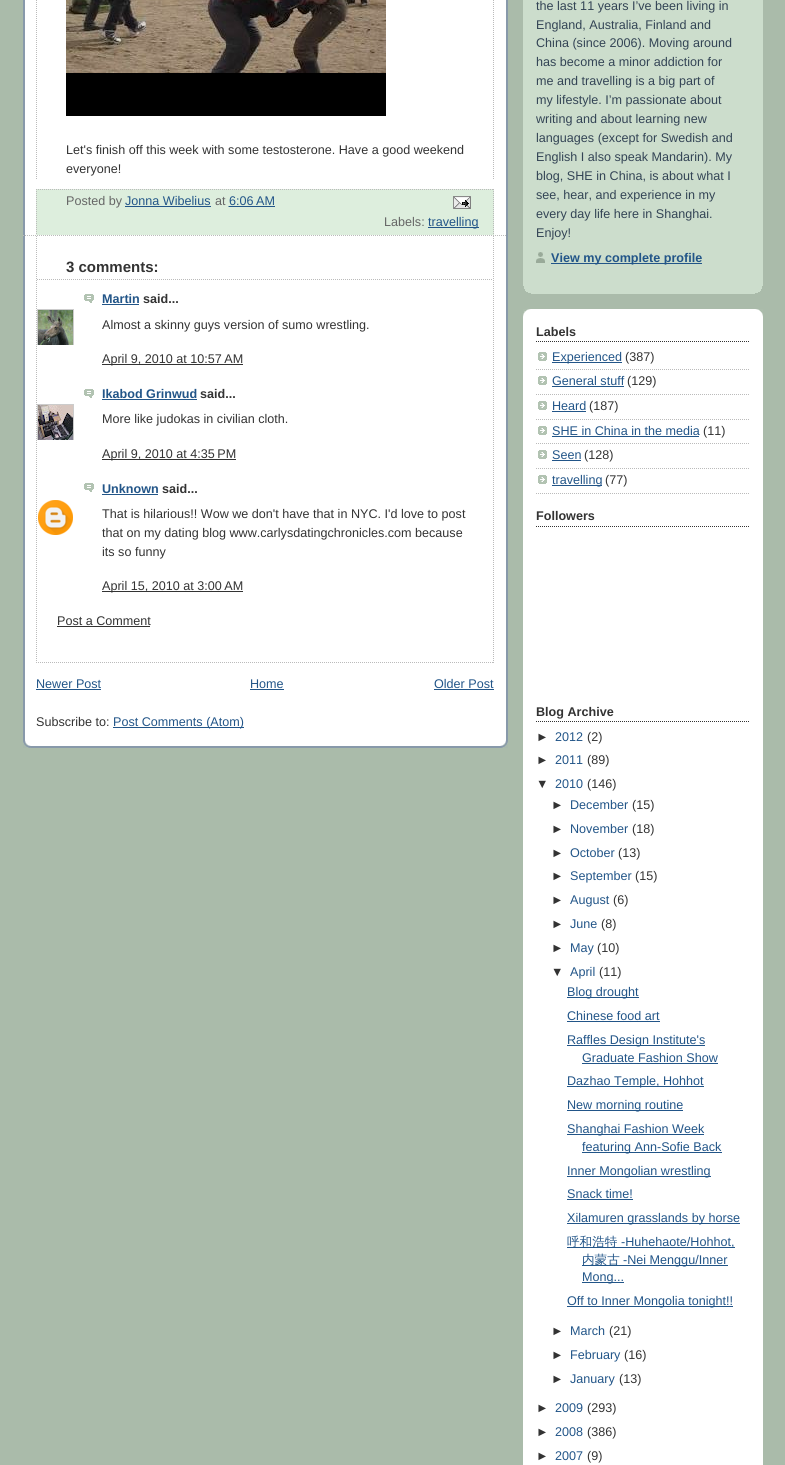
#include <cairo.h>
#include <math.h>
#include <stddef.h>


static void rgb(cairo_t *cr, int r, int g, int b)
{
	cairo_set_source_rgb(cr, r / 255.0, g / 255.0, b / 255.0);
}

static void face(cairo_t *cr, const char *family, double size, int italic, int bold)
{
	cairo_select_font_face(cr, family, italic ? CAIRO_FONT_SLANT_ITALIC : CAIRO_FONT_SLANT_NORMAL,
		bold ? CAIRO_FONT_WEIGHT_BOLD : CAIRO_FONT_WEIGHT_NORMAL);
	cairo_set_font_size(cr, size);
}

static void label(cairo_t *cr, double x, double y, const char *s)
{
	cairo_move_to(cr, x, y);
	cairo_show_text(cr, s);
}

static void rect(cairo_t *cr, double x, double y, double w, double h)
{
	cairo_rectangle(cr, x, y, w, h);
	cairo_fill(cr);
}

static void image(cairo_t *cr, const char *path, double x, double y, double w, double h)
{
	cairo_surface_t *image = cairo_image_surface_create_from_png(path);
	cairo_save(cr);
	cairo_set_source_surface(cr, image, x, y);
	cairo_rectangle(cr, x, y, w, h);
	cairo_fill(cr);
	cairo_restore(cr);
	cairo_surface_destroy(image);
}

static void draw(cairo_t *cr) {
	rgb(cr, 170, 187, 170);
	cairo_paint(cr);
	rgb(cr, 255, 255, 255);
	rect(cr, 25, 0, 481, 746);
	image(cr, "image0.png", 23, 698, 485, 50);
	image(cr, "image1.png", 23, 0, 485, 698);
	cairo_new_path(cr);
	cairo_move_to(cr, 23, 235.5);
	cairo_line_to(cr, 507, 235.5);
	rgb(cr, 187, 187, 187);
	cairo_set_line_width(cr, 1);
	cairo_set_dash(cr, (double[]){1, 1}, 2, 0);
	cairo_stroke(cr);
	cairo_new_path(cr);
	cairo_move_to(cr, 493.5, -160);
	cairo_line_to(cr, 493.5, 180);
	cairo_stroke(cr);
	cairo_new_path(cr);
	cairo_move_to(cr, 36.5, -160);
	cairo_line_to(cr, 36.5, 180);
	cairo_stroke(cr);
	image(cr, "image2.png", 66, 0, 320, 116);
	face(cr, "Liberation Sans", 12.6, 0, 0);
	rgb(cr, 51, 51, 51);
	label(cr, 66, 154, "Let's finish off this week with some testosterone. Have a good weekend");
	label(cr, 66, 173, "everyone!");
	rgb(cr, 221, 238, 221);
	rect(cr, 36, 189, 458, 46);
	cairo_new_path(cr);
	cairo_move_to(cr, 36, 189.5);
	cairo_line_to(cr, 494, 189.5);
	rgb(cr, 187, 187, 187);
	cairo_stroke(cr);
	cairo_new_path(cr);
	cairo_move_to(cr, 493.5, 189);
	cairo_line_to(cr, 493.5, 235);
	cairo_stroke(cr);
	cairo_new_path(cr);
	cairo_move_to(cr, 36.5, 189);
	cairo_line_to(cr, 36.5, 235);
	cairo_stroke(cr);
	rgb(cr, 102, 102, 102);
	label(cr, 66, 205, "Posted by");
	rgb(cr, 34, 85, 136);
	label(cr, 125, 205, "Jonna Wibelius");
	rect(cr, 125, 206, 86, 1);
	rgb(cr, 102, 102, 102);
	label(cr, 215, 205, "at");
	rgb(cr, 34, 85, 136);
	label(cr, 229, 205, "6:06 AM");
	cairo_new_path(cr);
	cairo_move_to(cr, 228.5, 206.5);
	cairo_line_to(cr, 274.5, 206.5);
	cairo_stroke(cr);
	rect(cr, 229, 206, 46, 1);
	image(cr, "image3.png", 453, 196, 18, 13);
	rgb(cr, 102, 102, 102);
	label(cr, 384, 226, "Labels:");
	rgb(cr, 34, 85, 136);
	rect(cr, 428, 227, 51, 1);
	label(cr, 428, 226, "travelling");
	cairo_new_path(cr);
	cairo_move_to(cr, 493.5, 236);
	cairo_line_to(cr, 493.5, 663);
	rgb(cr, 187, 187, 187);
	cairo_stroke(cr);
	cairo_new_path(cr);
	cairo_move_to(cr, 36, 662.5);
	cairo_line_to(cr, 494, 662.5);
	cairo_stroke(cr);
	cairo_new_path(cr);
	cairo_move_to(cr, 36.5, 236);
	cairo_line_to(cr, 36.5, 663);
	cairo_stroke(cr);
	cairo_new_path(cr);
	cairo_move_to(cr, 37, 279.5);
	cairo_line_to(cr, 493, 279.5);
	cairo_stroke(cr);
	face(cr, "Liberation Sans", 15, 0, 1);
	rgb(cr, 51, 51, 51);
	label(cr, 66, 272, "3 comments:");
	image(cr, "image4.png", 84, 294, 10, 9);
	face(cr, "Liberation Sans", 12.6, 0, 1);
	rgb(cr, 34, 85, 136);
	label(cr, 102, 303, "Martin");
	rect(cr, 102, 304, 37, 1);
	rgb(cr, 51, 51, 51);
	label(cr, 143, 303, "said...");
	cairo_save(cr);
	cairo_rectangle(cr, 37, 309, 37, 36);
	cairo_clip(cr);
	cairo_rectangle(cr, 37.5, 309.5, 36, 36);
	rgb(cr, 204, 204, 204);
	cairo_set_dash(cr, NULL, 0, 0);
	cairo_stroke(cr);
	cairo_restore(cr);
	image(cr, "image5.png", 38, 310, 35, 35);
	face(cr, "Liberation Sans", 12.6, 0, 0);
	label(cr, 102, 329, "Almost a skinny guys version of sumo wrestling.");
	rect(cr, 102, 364, 141, 1);
	label(cr, 102, 363, "April 9, 2010 at 10:57 AM");
	image(cr, "image4.png", 84, 389, 10, 9);
	face(cr, "Liberation Sans", 12.6, 0, 1);
	rgb(cr, 34, 85, 136);
	label(cr, 102, 398, "Ikabod Grinwud");
	rect(cr, 102, 399, 95, 1);
	rgb(cr, 51, 51, 51);
	label(cr, 200, 398, "said...");
	cairo_save(cr);
	cairo_rectangle(cr, 37, 404, 37, 36);
	cairo_clip(cr);
	cairo_rectangle(cr, 37.5, 404.5, 36, 36);
	rgb(cr, 204, 204, 204);
	cairo_set_dash(cr, NULL, 0, 0);
	cairo_stroke(cr);
	cairo_restore(cr);
	image(cr, "image6.png", 38, 405, 35, 35);
	face(cr, "Liberation Sans", 12.6, 0, 0);
	label(cr, 102, 423, "More like judokas in civilian cloth.");
	rect(cr, 102, 459, 134, 1);
	label(cr, 102, 458, "April 9, 2010 at 4:35 PM");
	image(cr, "image4.png", 84, 483, 10, 9);
	face(cr, "Liberation Sans", 12.6, 0, 1);
	rgb(cr, 34, 85, 136);
	label(cr, 102, 493, "Unknown");
	rect(cr, 102, 494, 56, 1);
	rgb(cr, 51, 51, 51);
	label(cr, 162, 493, "said...");
	image(cr, "image7.png", 38, 500, 35, 35);
	face(cr, "Liberation Sans", 12.6, 0, 0);
	label(cr, 102, 518, "That is hilarious!! Wow we don't have that in NYC. I'd love to post");
	label(cr, 102, 537, "that on my dating blog www.carlysdatingchronicles.com because");
	label(cr, 102, 556, "its so funny");
	rect(cr, 102, 591, 141, 1);
	label(cr, 102, 590, "April 15, 2010 at 3:00 AM");
	label(cr, 57, 625, "Post a Comment");
	rect(cr, 57, 626, 93, 1);
	rgb(cr, 34, 85, 136);
	label(cr, 36, 688, "Newer Post");
	rect(cr, 36, 689, 65, 1);
	label(cr, 250, 688, "Home");
	rect(cr, 250, 689, 34, 1);
	label(cr, 434, 688, "Older Post");
	rect(cr, 434, 689, 60, 1);
	rgb(cr, 51, 51, 51);
	label(cr, 36, 726, "Subscribe to:");
	rgb(cr, 34, 85, 136);
	rect(cr, 113, 727, 131, 1);
	label(cr, 113, 726, "Post Comments (Atom)");
	rgb(cr, 204, 221, 204);
	rect(cr, 523, 0, 240, 294);
	image(cr, "image8.png", 523, 286, 240, 8);
	rgb(cr, 51, 68, 85);
	label(cr, 536, 10, "the last 11 years I’ve been living in");
	label(cr, 536, 29, "England, Australia, Finland and");
	label(cr, 536, 47, "China (since 2006). Moving around");
	label(cr, 536, 66, "has become a minor addiction for");
	label(cr, 536, 85, "me and travelling is a big part of");
	label(cr, 536, 104, "my lifestyle. I’m passionate about");
	label(cr, 536, 123, "writing and about learning new");
	label(cr, 536, 142, "languages (except for Swedish and");
	label(cr, 536, 161, "English I also speak Mandarin). My");
	label(cr, 536, 180, "blog, SHE in China, is about what I");
	label(cr, 536, 199, "see, hear, and experience in my");
	label(cr, 536, 218, "every day life here in Shanghai.");
	label(cr, 536, 237, "Enjoy!");
	image(cr, "image9.png", 536, 252, 9, 11);
	rgb(cr, 34, 85, 136);
	rect(cr, 551, 263, 151, 1);
	face(cr, "Liberation Sans", 12.6, 0, 1);
	label(cr, 551, 262, "View my complete profile");
	rgb(cr, 255, 255, 255);
	rect(cr, 523, 309, 240, 1156);
	image(cr, "image10.png", 523, 309, 240, 8);
	cairo_new_path(cr);
	cairo_move_to(cr, 536, 341.5);
	cairo_line_to(cr, 750, 341.5);
	rgb(cr, 51, 51, 51);
	cairo_stroke(cr);
	label(cr, 536, 336, "Labels");
	image(cr, "image11.png", 538, 352, 9, 9);
	cairo_new_path(cr);
	cairo_move_to(cr, 536, 369.5);
	cairo_line_to(cr, 750, 369.5);
	rgb(cr, 187, 187, 187);
	cairo_stroke(cr);
	rgb(cr, 34, 85, 136);
	rect(cr, 552, 362, 70, 1);
	face(cr, "Liberation Sans", 12.6, 0, 0);
	label(cr, 552, 361, "Experienced");
	rgb(cr, 51, 51, 51);
	label(cr, 625, 361, "(387)");
	image(cr, "image11.png", 538, 376, 9, 9);
	cairo_new_path(cr);
	cairo_move_to(cr, 536, 394.5);
	cairo_line_to(cr, 750, 394.5);
	rgb(cr, 187, 187, 187);
	cairo_stroke(cr);
	rgb(cr, 34, 85, 136);
	label(cr, 552, 385, "General stuff");
	rect(cr, 552, 386, 72, 1);
	rgb(cr, 51, 51, 51);
	label(cr, 627, 385, "(129)");
	image(cr, "image11.png", 538, 401, 9, 9);
	cairo_new_path(cr);
	cairo_move_to(cr, 536, 419.5);
	cairo_line_to(cr, 750, 419.5);
	rgb(cr, 187, 187, 187);
	cairo_stroke(cr);
	rgb(cr, 34, 85, 136);
	label(cr, 552, 410, "Heard");
	rect(cr, 552, 411, 34, 1);
	rgb(cr, 51, 51, 51);
	label(cr, 589, 410, "(187)");
	image(cr, "image11.png", 538, 426, 9, 9);
	cairo_new_path(cr);
	cairo_move_to(cr, 536, 443.5);
	cairo_line_to(cr, 750, 443.5);
	rgb(cr, 187, 187, 187);
	cairo_stroke(cr);
	rgb(cr, 34, 85, 136);
	label(cr, 552, 435, "SHE in China in the media");
	rect(cr, 552, 436, 147, 1);
	rgb(cr, 51, 51, 51);
	label(cr, 703, 435, "(11)");
	image(cr, "image11.png", 538, 450, 9, 9);
	cairo_new_path(cr);
	cairo_move_to(cr, 536, 468.5);
	cairo_line_to(cr, 750, 468.5);
	rgb(cr, 187, 187, 187);
	cairo_stroke(cr);
	rgb(cr, 34, 85, 136);
	label(cr, 552, 459, "Seen");
	rect(cr, 552, 460, 29, 1);
	rgb(cr, 51, 51, 51);
	label(cr, 584, 459, "(128)");
	image(cr, "image11.png", 538, 475, 9, 9);
	cairo_new_path(cr);
	cairo_move_to(cr, 536, 493.5);
	cairo_line_to(cr, 750, 493.5);
	rgb(cr, 187, 187, 187);
	cairo_stroke(cr);
	rgb(cr, 34, 85, 136);
	rect(cr, 552, 485, 50, 1);
	label(cr, 552, 484, "travelling");
	rgb(cr, 51, 51, 51);
	label(cr, 605, 484, "(77)");
	cairo_new_path(cr);
	cairo_move_to(cr, 536, 526.5);
	cairo_line_to(cr, 750, 526.5);
	cairo_stroke(cr);
	face(cr, "Liberation Sans", 12.6, 0, 1);
	label(cr, 536, 520, "Followers");
	cairo_new_path(cr);
	cairo_move_to(cr, 536, 721.5);
	cairo_line_to(cr, 750, 721.5);
	cairo_stroke(cr);
	label(cr, 536, 716, "Blog Archive");
	face(cr, "Liberation Sans", 12.6, 0, 0);
	label(cr, 536, 741, "►");
	rgb(cr, 34, 85, 136);
	label(cr, 555, 741, "2012");
	rgb(cr, 51, 51, 51);
	label(cr, 587, 741, "(2)");
	label(cr, 536, 764, "►");
	rgb(cr, 34, 85, 136);
	label(cr, 555, 764, "2011");
	rgb(cr, 51, 51, 51);
	label(cr, 587, 764, "(89)");
	label(cr, 536, 788, "▼");
	rgb(cr, 34, 85, 136);
	label(cr, 555, 788, "2010");
	rgb(cr, 51, 51, 51);
	label(cr, 587, 788, "(146)");
	label(cr, 551, 809, "►");
	rgb(cr, 34, 85, 136);
	label(cr, 570, 809, "December");
	rgb(cr, 51, 51, 51);
	label(cr, 632, 809, "(15)");
	label(cr, 551, 833, "►");
	rgb(cr, 34, 85, 136);
	label(cr, 570, 833, "November");
	rgb(cr, 51, 51, 51);
	label(cr, 632, 833, "(18)");
	label(cr, 551, 857, "►");
	rgb(cr, 34, 85, 136);
	label(cr, 570, 857, "October");
	rgb(cr, 51, 51, 51);
	label(cr, 618, 857, "(13)");
	label(cr, 551, 880, "►");
	rgb(cr, 34, 85, 136);
	label(cr, 570, 880, "September");
	rgb(cr, 51, 51, 51);
	label(cr, 635, 880, "(15)");
	label(cr, 551, 904, "►");
	rgb(cr, 34, 85, 136);
	label(cr, 570, 904, "August");
	rgb(cr, 51, 51, 51);
	label(cr, 613, 904, "(6)");
	label(cr, 551, 928, "►");
	rgb(cr, 34, 85, 136);
	label(cr, 570, 928, "June");
	rgb(cr, 51, 51, 51);
	label(cr, 601, 928, "(8)");
	label(cr, 551, 952, "►");
	rgb(cr, 34, 85, 136);
	label(cr, 570, 952, "May");
	rgb(cr, 51, 51, 51);
	label(cr, 597, 952, "(10)");
	label(cr, 551, 976, "▼");
	rgb(cr, 34, 85, 136);
	label(cr, 570, 976, "April");
	rgb(cr, 51, 51, 51);
	label(cr, 599, 976, "(11)");
	rgb(cr, 34, 85, 136);
	rect(cr, 567, 997, 72, 1);
	label(cr, 567, 996, "Blog drought");
	label(cr, 567, 1020, "Chinese food art");
	rect(cr, 567, 1021, 93, 1);
	rect(cr, 567, 1045, 138, 1);
	label(cr, 567, 1044, "Raffles Design Institute's");
	label(cr, 582, 1062, "Graduate Fashion Show");
	rect(cr, 582, 1063, 136, 1);
	rect(cr, 567, 1086, 137, 1);
	label(cr, 567, 1085, "Dazhao Temple, Hohhot");
	rect(cr, 567, 1110, 116, 1);
	label(cr, 567, 1109, "New morning routine");
	rect(cr, 567, 1134, 137, 1);
	label(cr, 567, 1133, "Shanghai Fashion Week");
	rect(cr, 582, 1152, 140, 1);
	label(cr, 582, 1151, "featuring Ann-Sofie Back");
	rect(cr, 567, 1176, 144, 1);
	label(cr, 567, 1175, "Inner Mongolian wrestling");
	label(cr, 567, 1198, "Snack time!");
	rect(cr, 567, 1199, 66, 1);
	rect(cr, 567, 1223, 173, 1);
	label(cr, 567, 1222, "Xilamuren grasslands by horse");
	rect(cr, 567, 1247, 168, 1);
	face(cr, "WenQuanYi Zen Hei Medium", 12.6, 0, 0);
	label(cr, 567, 1246, "呼和浩特");
	face(cr, "Liberation Sans", 12.6, 0, 0);
	label(cr, 621, 1246, "-Huhehaote/Hohhot,");
	rect(cr, 582, 1265, 146, 1);
	face(cr, "WenQuanYi Zen Hei Medium", 12.6, 0, 0);
	label(cr, 582, 1264, "内蒙古");
	face(cr, "Liberation Sans", 12.6, 0, 0);
	label(cr, 623, 1264, "-Nei Menggu/Inner");
	rect(cr, 582, 1282, 42, 1);
	label(cr, 582, 1281, "Mong...");
	rect(cr, 567, 1306, 166, 1);
	label(cr, 567, 1305, "Off to Inner Mongolia tonight!!");
	rgb(cr, 51, 51, 51);
	label(cr, 551, 1335, "►");
	rgb(cr, 34, 85, 136);
	label(cr, 570, 1335, "March");
	rgb(cr, 51, 51, 51);
	label(cr, 609, 1335, "(21)");
	label(cr, 551, 1359, "►");
	rgb(cr, 34, 85, 136);
	label(cr, 570, 1359, "February");
	rgb(cr, 51, 51, 51);
	label(cr, 624, 1359, "(16)");
	label(cr, 551, 1383, "►");
	rgb(cr, 34, 85, 136);
	label(cr, 570, 1383, "January");
	rgb(cr, 51, 51, 51);
	label(cr, 619, 1383, "(13)");
	label(cr, 536, 1412, "►");
	rgb(cr, 34, 85, 136);
	label(cr, 555, 1412, "2009");
	rgb(cr, 51, 51, 51);
	label(cr, 587, 1412, "(293)");
	label(cr, 536, 1436, "►");
	rgb(cr, 34, 85, 136);
	label(cr, 555, 1436, "2008");
	rgb(cr, 51, 51, 51);
	label(cr, 587, 1436, "(386)");
	label(cr, 536, 1460, "►");
	rgb(cr, 34, 85, 136);
	label(cr, 555, 1460, "2007");
	rgb(cr, 51, 51, 51);
	label(cr, 587, 1460, "(9)");
}

int main(void) {
	cairo_surface_t *surface = cairo_image_surface_create(CAIRO_FORMAT_RGB24, 785, 1465);
	cairo_t *cr = cairo_create(surface);
	cairo_font_options_t *options = cairo_font_options_create();
	cairo_font_options_set_hint_metrics(options, CAIRO_HINT_METRICS_OFF);
	cairo_font_options_set_hint_style(options, CAIRO_HINT_STYLE_NONE);
	cairo_set_font_options(cr, options);
	cairo_set_miter_limit(cr, 4);
	draw(cr);
	cairo_surface_write_to_png(surface, "render.png");
	cairo_font_options_destroy(options);
	cairo_destroy(cr);
	cairo_surface_destroy(surface);
	return 0;
}
